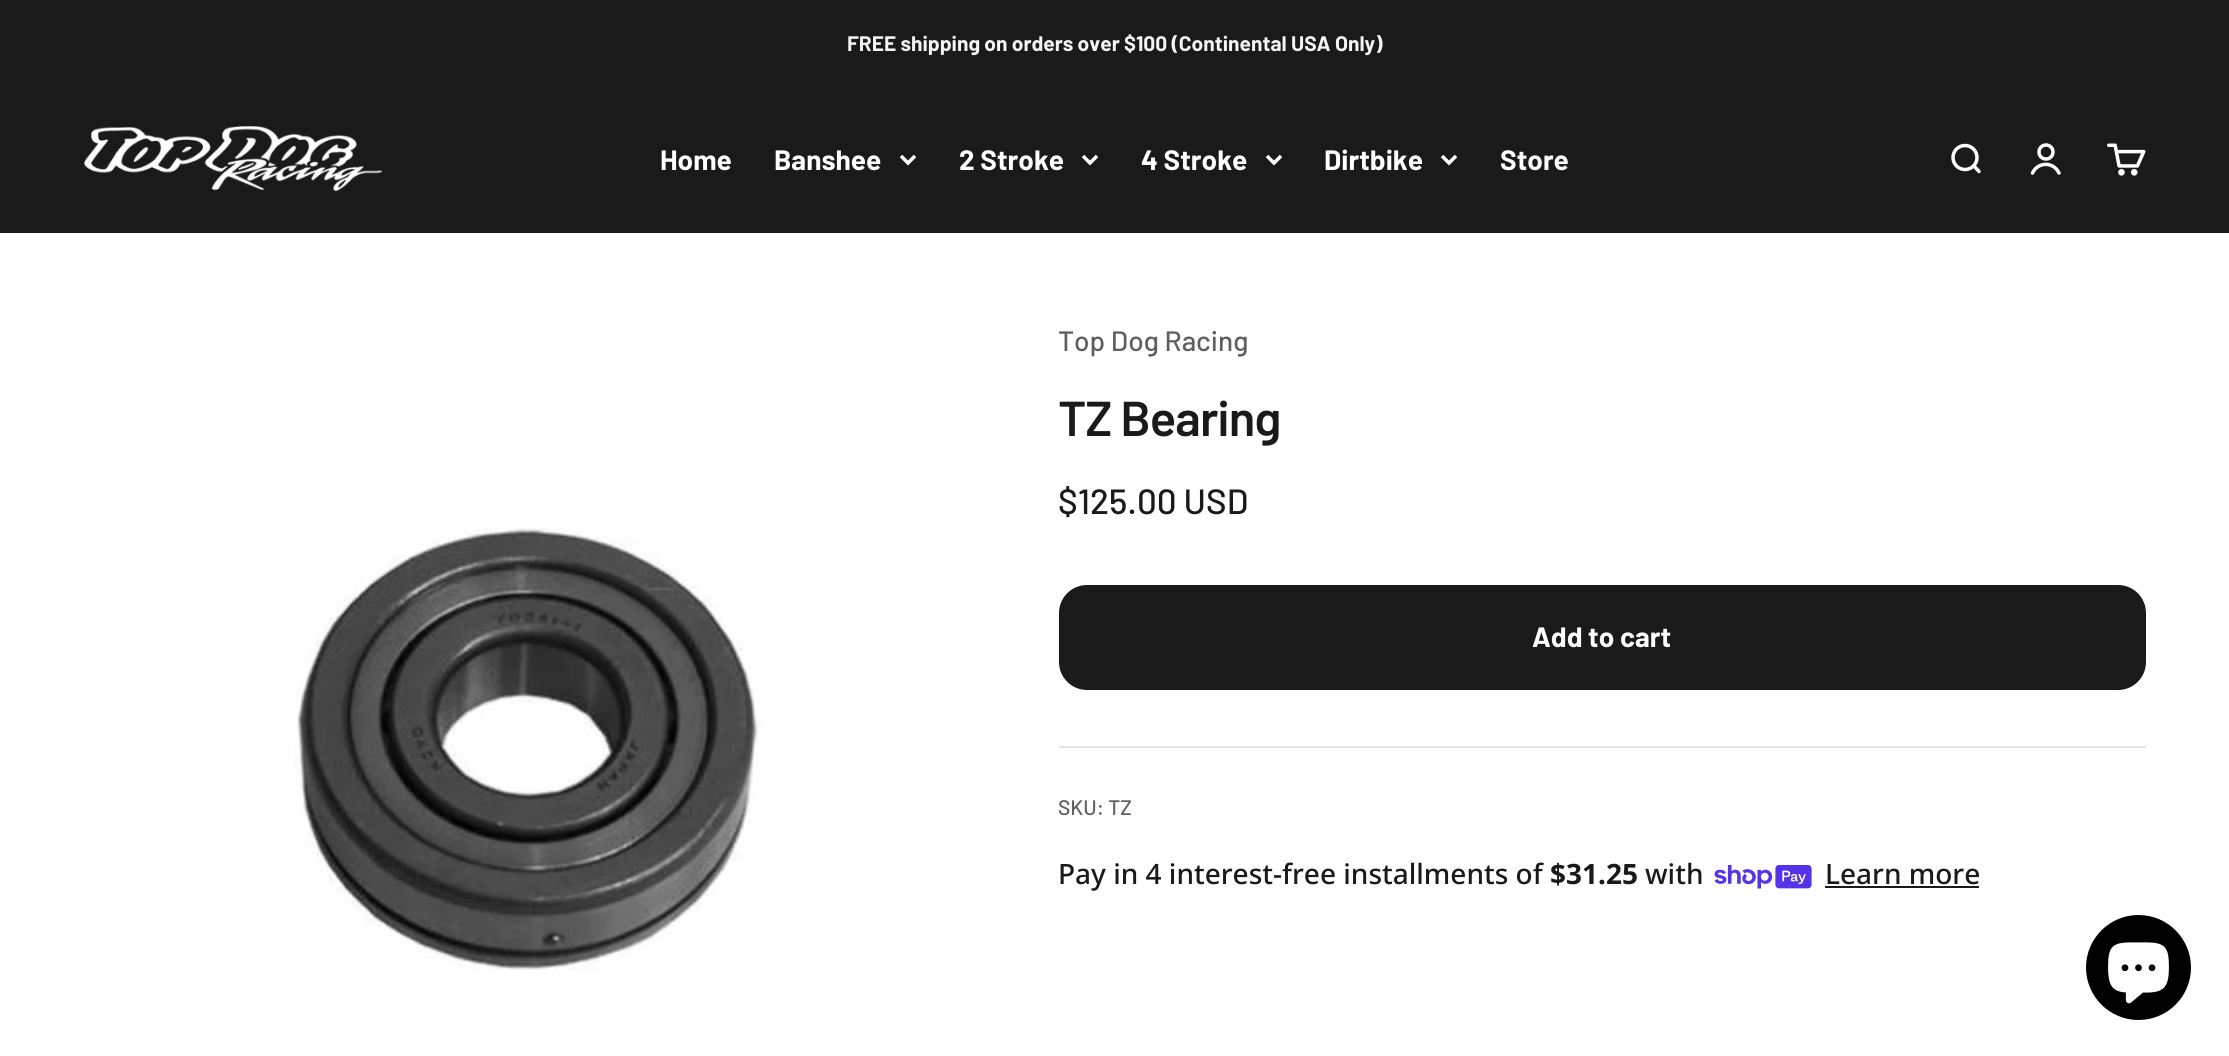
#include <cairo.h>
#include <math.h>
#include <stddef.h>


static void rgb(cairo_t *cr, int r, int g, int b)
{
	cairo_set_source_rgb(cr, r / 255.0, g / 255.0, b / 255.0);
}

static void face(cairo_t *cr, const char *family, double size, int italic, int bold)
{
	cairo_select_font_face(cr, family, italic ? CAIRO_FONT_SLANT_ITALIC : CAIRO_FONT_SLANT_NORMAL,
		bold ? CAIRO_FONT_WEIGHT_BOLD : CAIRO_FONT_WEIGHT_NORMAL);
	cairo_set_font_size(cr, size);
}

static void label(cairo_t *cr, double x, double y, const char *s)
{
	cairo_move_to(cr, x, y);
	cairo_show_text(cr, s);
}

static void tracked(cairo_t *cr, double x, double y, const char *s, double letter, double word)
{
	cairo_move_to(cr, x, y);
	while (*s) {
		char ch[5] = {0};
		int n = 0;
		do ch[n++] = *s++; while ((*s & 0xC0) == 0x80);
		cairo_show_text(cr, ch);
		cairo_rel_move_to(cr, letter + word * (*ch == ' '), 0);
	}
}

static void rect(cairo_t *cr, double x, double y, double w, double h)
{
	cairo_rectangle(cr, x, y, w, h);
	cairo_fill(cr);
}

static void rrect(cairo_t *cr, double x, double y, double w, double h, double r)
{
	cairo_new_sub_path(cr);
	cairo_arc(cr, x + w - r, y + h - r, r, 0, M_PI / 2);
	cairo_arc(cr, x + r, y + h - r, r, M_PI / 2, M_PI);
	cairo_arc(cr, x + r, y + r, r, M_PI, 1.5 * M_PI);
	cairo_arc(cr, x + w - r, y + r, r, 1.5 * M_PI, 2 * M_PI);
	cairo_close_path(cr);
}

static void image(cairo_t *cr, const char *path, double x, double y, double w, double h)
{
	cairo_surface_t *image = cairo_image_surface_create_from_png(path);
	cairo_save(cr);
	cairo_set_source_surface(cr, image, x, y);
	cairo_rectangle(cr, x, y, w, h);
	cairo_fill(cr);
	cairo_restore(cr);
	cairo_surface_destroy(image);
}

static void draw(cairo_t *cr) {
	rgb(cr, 26, 26, 26);
	cairo_paint(cr);
	face(cr, "Barlow", 21, 0, 1);
	rgb(cr, 245, 245, 245);
	label(cr, 847, 51, "FREE shipping on orders over $100 (Continental USA Only)");
	image(cr, "image0.png", 84, 126, 298, 65);
	face(cr, "Barlow", 28, 0, 1);
	rgb(cr, 255, 255, 255);
	label(cr, 660, 170, "Home");
	label(cr, 774, 170, "Banshee");
	cairo_new_path(cr);
	cairo_move_to(cr, 901, 156);
	cairo_line_to(cr, 908, 163);
	cairo_line_to(cr, 915, 156);
	cairo_set_line_width(cr, 3.5);
	cairo_stroke(cr);
	label(cr, 959, 170, "2 Stroke");
	cairo_new_path(cr);
	cairo_move_to(cr, 1083, 156);
	cairo_line_to(cr, 1090, 163);
	cairo_line_to(cr, 1097, 156);
	cairo_stroke(cr);
	label(cr, 1141, 170, "4 Stroke");
	cairo_new_path(cr);
	cairo_move_to(cr, 1267, 156);
	cairo_line_to(cr, 1274, 163);
	cairo_line_to(cr, 1281, 156);
	cairo_stroke(cr);
	label(cr, 1324, 170, "Dirtbike");
	cairo_new_path(cr);
	cairo_move_to(cr, 1442, 156);
	cairo_line_to(cr, 1449, 163);
	cairo_line_to(cr, 1456, 156);
	cairo_stroke(cr);
	label(cr, 1500, 170, "Store");
	cairo_new_path(cr);
	cairo_arc(cr, 1965, 157.5, 12, 0, 2 * M_PI);
	cairo_stroke(cr);
	cairo_new_path(cr);
	cairo_move_to(cr, 1974, 166);
	cairo_line_to(cr, 1979, 171.5);
	cairo_set_line_cap(cr, CAIRO_LINE_CAP_ROUND);
	cairo_set_line_join(cr, CAIRO_LINE_JOIN_ROUND);
	cairo_stroke(cr);
	cairo_arc(cr, 2046, 152, 7, 0, 2 * M_PI);
	cairo_set_line_cap(cr, CAIRO_LINE_CAP_BUTT);
	cairo_set_line_join(cr, CAIRO_LINE_JOIN_MITER);
	cairo_stroke(cr);
	cairo_new_path(cr);
	cairo_move_to(cr, 2032.5, 173);
	cairo_curve_to(cr, 2038, 161.5, 2053.5, 161.5, 2059, 173);
	cairo_set_line_cap(cr, CAIRO_LINE_CAP_ROUND);
	cairo_stroke(cr);
	image(cr, "image1.png", 2107, 143, 39, 33);
	rect(cr, 0, 233, 2229, 823);
	image(cr, "image2.png", 295, 527, 469, 445);
	face(cr, "Barlow Medium", 28, 0, 0);
	rgb(cr, 95, 95, 95);
	label(cr, 1058, 351, "Top Dog Racing");
	face(cr, "Barlow SemiBold", 49, 0, 0);
	rgb(cr, 26, 26, 26);
	tracked(cr, 1058, 436, "TZ Bearing", -1, 0);
	face(cr, "Barlow Medium", 35, 0, 0);
	label(cr, 1058, 514, "$125.00 USD");
	rrect(cr, 1059, 585, 1087, 105, 28);
	cairo_fill(cr);
	face(cr, "Barlow", 28, 0, 1);
	rgb(cr, 255, 255, 255);
	label(cr, 1532, 647, "Add to cart");
	rgb(cr, 228, 228, 228);
	rect(cr, 1059, 746, 1087, 2);
	face(cr, "Barlow Medium", 21, 0, 0);
	rgb(cr, 95, 95, 95);
	label(cr, 1058, 815, "SKU: TZ");
	face(cr, "Noto Sans Medium", 28, 0, 0);
	rgb(cr, 26, 26, 26);
	label(cr, 1058, 884, "Pay in 4 interest-free installments of");
	face(cr, "Noto Sans", 28, 0, 1);
	label(cr, 1550, 884, "$31.25");
	face(cr, "Noto Sans Medium", 28, 0, 0);
	label(cr, 1645, 884, "with");
	image(cr, "image3.png", 1714, 865, 98, 24);
	label(cr, 1825, 884, "Learn more");
	rect(cr, 1825, 886, 154, 2);
	rgb(cr, 0, 0, 0);
	cairo_new_path(cr);
	cairo_arc(cr, 2138.5, 967.5, 52.5, 0, 2 * M_PI);
	cairo_fill(cr);
	image(cr, "image4.png", 2108, 942, 61, 62);
}

int main(void) {
	cairo_surface_t *surface = cairo_image_surface_create(CAIRO_FORMAT_RGB24, 2229, 1056);
	cairo_t *cr = cairo_create(surface);
	cairo_font_options_t *options = cairo_font_options_create();
	cairo_font_options_set_hint_metrics(options, CAIRO_HINT_METRICS_OFF);
	cairo_font_options_set_hint_style(options, CAIRO_HINT_STYLE_NONE);
	cairo_set_font_options(cr, options);
	cairo_set_miter_limit(cr, 4);
	draw(cr);
	cairo_surface_write_to_png(surface, "render.png");
	cairo_font_options_destroy(options);
	cairo_destroy(cr);
	cairo_surface_destroy(surface);
	return 0;
}
